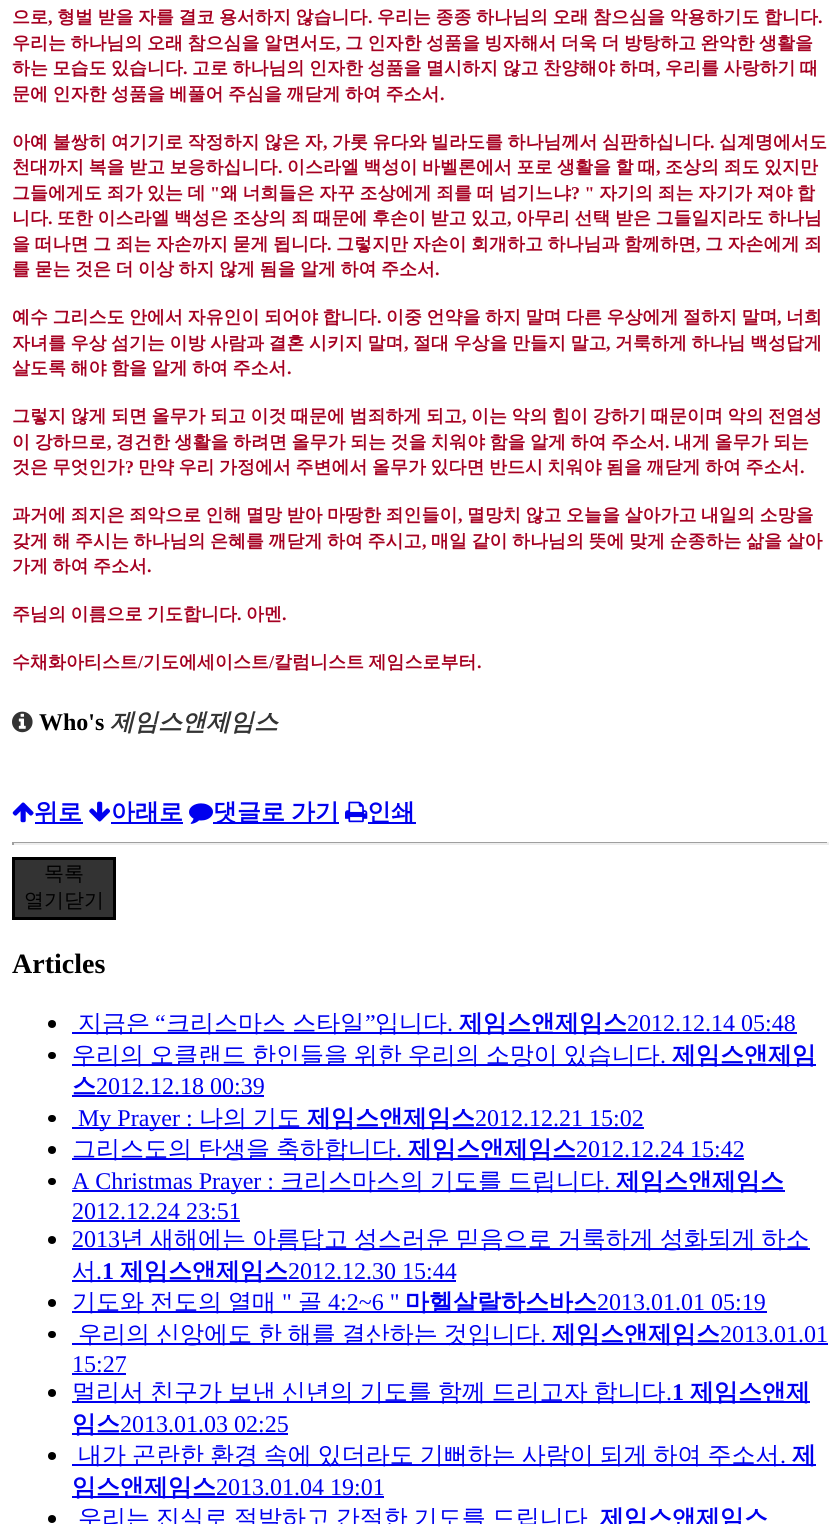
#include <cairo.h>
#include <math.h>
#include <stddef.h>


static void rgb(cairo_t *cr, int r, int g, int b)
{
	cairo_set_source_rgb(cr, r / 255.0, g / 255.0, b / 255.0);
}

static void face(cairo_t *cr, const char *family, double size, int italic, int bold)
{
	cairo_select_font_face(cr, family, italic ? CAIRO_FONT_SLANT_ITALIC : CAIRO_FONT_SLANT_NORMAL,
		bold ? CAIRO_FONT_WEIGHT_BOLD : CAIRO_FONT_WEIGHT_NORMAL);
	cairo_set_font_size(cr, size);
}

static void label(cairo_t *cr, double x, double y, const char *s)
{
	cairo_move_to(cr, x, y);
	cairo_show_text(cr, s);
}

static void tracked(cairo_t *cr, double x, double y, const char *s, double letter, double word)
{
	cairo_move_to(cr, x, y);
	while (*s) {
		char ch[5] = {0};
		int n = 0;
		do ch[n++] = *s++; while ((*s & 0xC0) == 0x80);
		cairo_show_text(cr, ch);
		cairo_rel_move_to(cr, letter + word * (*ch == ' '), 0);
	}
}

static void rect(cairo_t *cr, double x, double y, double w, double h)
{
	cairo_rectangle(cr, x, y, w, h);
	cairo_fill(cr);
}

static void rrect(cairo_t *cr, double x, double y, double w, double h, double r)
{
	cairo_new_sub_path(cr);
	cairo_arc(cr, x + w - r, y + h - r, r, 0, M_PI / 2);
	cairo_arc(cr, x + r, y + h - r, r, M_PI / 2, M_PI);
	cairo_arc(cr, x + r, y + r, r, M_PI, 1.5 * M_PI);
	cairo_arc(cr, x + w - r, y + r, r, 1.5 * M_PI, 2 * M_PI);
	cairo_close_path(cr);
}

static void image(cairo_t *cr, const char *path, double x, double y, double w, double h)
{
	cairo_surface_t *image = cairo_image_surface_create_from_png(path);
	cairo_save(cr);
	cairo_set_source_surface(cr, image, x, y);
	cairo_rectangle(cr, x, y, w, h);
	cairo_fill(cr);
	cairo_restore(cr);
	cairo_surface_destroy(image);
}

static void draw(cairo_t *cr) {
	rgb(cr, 255, 255, 255);
	cairo_paint(cr);
	face(cr, "WenQuanYi Zen Hei", 18, 0, 1);
	rgb(cr, 165, 0, 33);
	label(cr, 12, 23, "으로");
	face(cr, "Liberation Serif", 18, 0, 1);
	label(cr, 48, 23, ",");
	face(cr, "WenQuanYi Zen Hei", 18, 0, 1);
	tracked(cr, 57, 23, "형벌 받을 자를 결코 용서하지 않습니다", 0, -0.9);
	face(cr, "Liberation Serif", 18, 0, 1);
	label(cr, 368, 23, ".");
	face(cr, "WenQuanYi Zen Hei", 18, 0, 1);
	tracked(cr, 377, 23, "우리는 종종 하나님의 오래 참으심을 악용하기도 합니다", 0, -0.9);
	face(cr, "Liberation Serif", 18, 0, 1);
	label(cr, 818, 23, ".");
	face(cr, "WenQuanYi Zen Hei", 18, 0, 1);
	tracked(cr, 12, 49, "우리는 하나님의 오래 참으심을 알면서도", 0, -0.9);
	face(cr, "Liberation Serif", 18, 0, 1);
	label(cr, 336, 49, ",");
	face(cr, "WenQuanYi Zen Hei", 18, 0, 1);
	tracked(cr, 345, 49, "그 인자한 성품을 빙자해서 더욱 더 방탕하고 완악한 생활을", 0, -0.9);
	tracked(cr, 12, 74, "하는 모습도 있습니다", 0, -0.9);
	face(cr, "Liberation Serif", 18, 0, 1);
	label(cr, 183, 74, ".");
	face(cr, "WenQuanYi Zen Hei", 18, 0, 1);
	tracked(cr, 192, 74, "고로 하나님의 인자한 성품을 멸시하지 않고 찬양해야 하며", 0, -0.9);
	face(cr, "Liberation Serif", 18, 0, 1);
	label(cr, 656, 74, ",");
	face(cr, "WenQuanYi Zen Hei", 18, 0, 1);
	tracked(cr, 665, 74, "우리를 사랑하기 때", 0, -0.9);
	tracked(cr, 12, 100, "문에 인자한 성품을 베풀어 주심을 깨닫게 하여 주소서", 0, -0.9);
	face(cr, "Liberation Serif", 18, 0, 1);
	label(cr, 440, 100, ".");
	face(cr, "WenQuanYi Zen Hei", 18, 0, 1);
	tracked(cr, 12, 148, "아예 불쌍히 여기기로 작정하지 않은 자", 0, -0.9);
	face(cr, "Liberation Serif", 18, 0, 1);
	label(cr, 323, 148, ",");
	face(cr, "WenQuanYi Zen Hei", 18, 0, 1);
	tracked(cr, 332, 148, "가롯 유다와 빌라도를 하나님께서 심판하십니다", 0, -0.9);
	face(cr, "Liberation Serif", 18, 0, 1);
	label(cr, 710, 148, ".");
	face(cr, "WenQuanYi Zen Hei", 18, 0, 1);
	label(cr, 719, 148, "십계명에서도");
	tracked(cr, 12, 173, "천대까지 복을 받고 보응하십니다", 0, -0.9);
	face(cr, "Liberation Serif", 18, 0, 1);
	label(cr, 278, 173, ".");
	face(cr, "WenQuanYi Zen Hei", 18, 0, 1);
	tracked(cr, 287, 173, "이스라엘 백성이 바벨론에서 포로 생활을 할 때", 0, -0.9);
	face(cr, "Liberation Serif", 18, 0, 1);
	label(cr, 656, 173, ",");
	face(cr, "WenQuanYi Zen Hei", 18, 0, 1);
	tracked(cr, 665, 173, "조상의 죄도 있지만", 0, -0.9);
	tracked(cr, 12, 199, "그들에게도 죄가 있는 데", 0, -0.9);
	face(cr, "Liberation Serif", 18, 0, 1);
	label(cr, 210, 199, "\"");
	face(cr, "WenQuanYi Zen Hei", 18, 0, 1);
	tracked(cr, 220, 199, "왜 너희들은 자꾸 조상에게 죄를 떠 넘기느냐", 0, -0.9);
	face(cr, "Liberation Serif", 18, 0, 1);
	label(cr, 571, 199, "? \"");
	face(cr, "WenQuanYi Zen Hei", 18, 0, 1);
	tracked(cr, 599, 199, "자기의 죄는 자기가 져야 합", 0, -0.9);
	label(cr, 12, 224, "니다");
	face(cr, "Liberation Serif", 18, 0, 1);
	label(cr, 48, 224, ".");
	face(cr, "WenQuanYi Zen Hei", 18, 0, 1);
	tracked(cr, 57, 224, "또한 이스라엘 백성은 조상의 죄 때문에 후손이 받고 있고", 0, -0.9);
	face(cr, "Liberation Serif", 18, 0, 1);
	label(cr, 507, 224, ",");
	face(cr, "WenQuanYi Zen Hei", 18, 0, 1);
	tracked(cr, 516, 224, "아무리 선택 받은 그들일지라도 하나님", 0, -0.9);
	tracked(cr, 12, 250, "을 떠나면 그 죄는 자손까지 묻게 됩니다", 0, -0.9);
	face(cr, "Liberation Serif", 18, 0, 1);
	label(cr, 327, 250, ".");
	face(cr, "WenQuanYi Zen Hei", 18, 0, 1);
	tracked(cr, 336, 250, "그렇지만 자손이 회개하고 하나님과 함께하면", 0, -0.9);
	face(cr, "Liberation Serif", 18, 0, 1);
	label(cr, 696, 250, ",");
	face(cr, "WenQuanYi Zen Hei", 18, 0, 1);
	tracked(cr, 705, 250, "그 자손에게 죄", 0, -0.9);
	tracked(cr, 12, 275, "를 묻는 것은 더 이상 하지 않게 됨을 알게 하여 주소서", 0, -0.9);
	face(cr, "Liberation Serif", 18, 0, 1);
	label(cr, 435, 275, ".");
	face(cr, "WenQuanYi Zen Hei", 18, 0, 1);
	tracked(cr, 12, 323, "예수 그리스도 안에서 자유인이 되어야 합니다", 0, -0.9);
	face(cr, "Liberation Serif", 18, 0, 1);
	label(cr, 377, 323, ".");
	face(cr, "WenQuanYi Zen Hei", 18, 0, 1);
	tracked(cr, 386, 323, "이중 언약을 하지 말며 다른 우상에게 절하지 말며", 0, -0.9);
	face(cr, "Liberation Serif", 18, 0, 1);
	label(cr, 777, 323, ",");
	face(cr, "WenQuanYi Zen Hei", 18, 0, 1);
	label(cr, 786, 323, "너희");
	tracked(cr, 12, 349, "자녀를 우상 섬기는 이방 사람과 결혼 시키지 말며", 0, -0.9);
	face(cr, "Liberation Serif", 18, 0, 1);
	label(cr, 404, 349, ",");
	face(cr, "WenQuanYi Zen Hei", 18, 0, 1);
	tracked(cr, 413, 349, "절대 우상을 만들지 말고", 0, -0.9);
	face(cr, "Liberation Serif", 18, 0, 1);
	label(cr, 606, 349, ",");
	face(cr, "WenQuanYi Zen Hei", 18, 0, 1);
	tracked(cr, 615, 349, "거룩하게 하나님 백성답게", 0, -0.9);
	tracked(cr, 12, 374, "살도록 해야 함을 알게 하여 주소서", 0, -0.9);
	face(cr, "Liberation Serif", 18, 0, 1);
	label(cr, 287, 374, ".");
	face(cr, "WenQuanYi Zen Hei", 18, 0, 1);
	tracked(cr, 12, 422, "그렇지 않게 되면 올무가 되고 이것 때문에 범죄하게 되고", 0, -0.9);
	face(cr, "Liberation Serif", 18, 0, 1);
	label(cr, 462, 422, ",");
	face(cr, "WenQuanYi Zen Hei", 18, 0, 1);
	tracked(cr, 471, 422, "이는 악의 힘이 강하기 때문이며 악의 전염성", 0, -0.9);
	tracked(cr, 12, 448, "이 강하므로", 0, -0.9);
	face(cr, "Liberation Serif", 18, 0, 1);
	label(cr, 107, 448, ",");
	face(cr, "WenQuanYi Zen Hei", 18, 0, 1);
	tracked(cr, 116, 448, "경건한 생활을 하려면 올무가 되는 것을 치워야 함을 알게 하여 주소서", 0, -0.9);
	face(cr, "Liberation Serif", 18, 0, 1);
	label(cr, 665, 448, ".");
	face(cr, "WenQuanYi Zen Hei", 18, 0, 1);
	tracked(cr, 674, 448, "내게 올무가 되는", 0, -0.9);
	tracked(cr, 12, 473, "것은 무엇인가", 0, -0.9);
	face(cr, "Liberation Serif", 18, 0, 1);
	label(cr, 125, 473, "?");
	face(cr, "WenQuanYi Zen Hei", 18, 0, 1);
	tracked(cr, 138, 473, "만약 우리 가정에서 주변에서 올무가 있다면 반드시 치워야 됨을 깨닫게 하여 주소서", 0, -0.9);
	face(cr, "Liberation Serif", 18, 0, 1);
	label(cr, 800, 473, ".");
	face(cr, "WenQuanYi Zen Hei", 18, 0, 1);
	tracked(cr, 12, 521, "과거에 죄지은 죄악으로 인해 멸망 받아 마땅한 죄인들이", 0, -0.9);
	face(cr, "Liberation Serif", 18, 0, 1);
	label(cr, 458, 521, ",");
	face(cr, "WenQuanYi Zen Hei", 18, 0, 1);
	tracked(cr, 467, 521, "멸망치 않고 오늘을 살아가고 내일의 소망을", 0, -0.9);
	tracked(cr, 12, 547, "갖게 해 주시는 하나님의 은혜를 깨닫게 하여 주시고", 0, -0.9);
	face(cr, "Liberation Serif", 18, 0, 1);
	label(cr, 422, 547, ",");
	face(cr, "WenQuanYi Zen Hei", 18, 0, 1);
	tracked(cr, 431, 547, "매일 같이 하나님의 뜻에 맞게 순종하는 삶을 살아", 0, -0.9);
	tracked(cr, 12, 572, "가게 하여 주소서", 0, -0.9);
	face(cr, "Liberation Serif", 18, 0, 1);
	label(cr, 147, 572, ".");
	face(cr, "WenQuanYi Zen Hei", 18, 0, 1);
	tracked(cr, 12, 620, "주님의 이름으로 기도합니다", 0, -0.9);
	face(cr, "Liberation Serif", 18, 0, 1);
	label(cr, 237, 620, ".");
	face(cr, "WenQuanYi Zen Hei", 18, 0, 1);
	label(cr, 246, 620, "아멘");
	face(cr, "Liberation Serif", 18, 0, 1);
	label(cr, 282, 620, ".");
	face(cr, "WenQuanYi Zen Hei", 18, 0, 1);
	label(cr, 12, 668, "수채화아티스트");
	face(cr, "Liberation Serif", 18, 0, 1);
	label(cr, 138, 668, "/");
	face(cr, "WenQuanYi Zen Hei", 18, 0, 1);
	label(cr, 143, 668, "기도에세이스트");
	face(cr, "Liberation Serif", 18, 0, 1);
	label(cr, 269, 668, "/");
	face(cr, "WenQuanYi Zen Hei", 18, 0, 1);
	tracked(cr, 274, 668, "칼럼니스트 제임스로부터", 0, -0.9);
	face(cr, "Liberation Serif", 18, 0, 1);
	label(cr, 477, 668, ".");
	image(cr, "image0.png", 12, 711, 21, 22);
	face(cr, "Liberation Serif", 24, 0, 1);
	rgb(cr, 0, 0, 0);
	label(cr, 39, 730, "Who's");
	face(cr, "WenQuanYi Zen Hei", 24, 1, 1);
	rgb(cr, 51, 51, 51);
	label(cr, 110, 730, "제임스앤제임스");
	image(cr, "image1.png", 12, 802, 22, 21);
	rgb(cr, 0, 0, 238);
	rect(cr, 35, 822, 48, 2);
	face(cr, "WenQuanYi Zen Hei", 24, 0, 1);
	label(cr, 34, 820, "위로");
	image(cr, "image2.png", 89, 801, 21, 21);
	rect(cr, 111, 822, 72, 2);
	label(cr, 111, 820, "아래로");
	image(cr, "image3.png", 189, 803, 24, 21);
	rect(cr, 213, 822, 126, 2);
	tracked(cr, 213, 820, "댓글로 가기", 0, -1.25);
	image(cr, "image4.png", 345, 801, 23, 22);
	rect(cr, 368, 822, 48, 2);
	label(cr, 367, 820, "인쇄");
	rgb(cr, 159, 159, 159);
	rect(cr, 12, 842, 816, 1);
	rgb(cr, 238, 238, 238);
	rect(cr, 827, 842, 2, 3);
	rect(cr, 12, 843, 816, 2);
	rgb(cr, 159, 159, 159);
	rect(cr, 12, 842, 2, 3);
	rgb(cr, 51, 51, 51);
	cairo_rectangle(cr, 13.5, 858.5, 101, 60);
	cairo_fill_preserve(cr);
	rgb(cr, 0, 0, 0);
	cairo_set_line_width(cr, 3);
	cairo_stroke(cr);
	face(cr, "WenQuanYi Zen Hei Medium", 20, 0, 0);
	label(cr, 44, 880, "목록");
	label(cr, 24, 907, "열기닫기");
	face(cr, "Liberation Serif", 28, 0, 1);
	label(cr, 12, 973, "Articles");
	cairo_new_path(cr);
	cairo_arc(cr, 52, 1024, 4, 0, 2 * M_PI);
	cairo_fill(cr);
	rgb(cr, 0, 0, 238);
	rect(cr, 72, 1032, 725, 2);
	face(cr, "WenQuanYi Zen Hei Medium", 24, 0, 0);
	label(cr, 78, 1031, "지금은");
	face(cr, "Liberation Serif", 24, 0, 0);
	label(cr, 155, 1031, "“");
	face(cr, "WenQuanYi Zen Hei Medium", 24, 0, 0);
	tracked(cr, 166, 1031, "크리스마스 스타일", 0, -1);
	face(cr, "Liberation Serif", 24, 0, 0);
	label(cr, 365, 1031, "”");
	face(cr, "WenQuanYi Zen Hei Medium", 24, 0, 0);
	label(cr, 375, 1031, "입니다");
	face(cr, "WenQuanYi Zen Hei", 24, 0, 1);
	label(cr, 459, 1031, "제임스앤제임스");
	face(cr, "Liberation Serif", 24, 0, 0);
	label(cr, 627, 1031, "2012.12.14 05:48");
	label(cr, 447, 1031, ".");
	rgb(cr, 0, 0, 0);
	rrect(cr, 48, 1052, 8, 7, 3.5);
	cairo_fill(cr);
	rgb(cr, 0, 0, 238);
	rect(cr, 72, 1064, 744, 2);
	face(cr, "WenQuanYi Zen Hei Medium", 24, 0, 0);
	tracked(cr, 72, 1063, "우리의 오클랜드 한인들을 위한 우리의 소망이 있습니다", 0, -1.25);
	face(cr, "WenQuanYi Zen Hei", 24, 0, 1);
	label(cr, 672, 1063, "제임스앤제임");
	face(cr, "Liberation Serif", 24, 0, 0);
	label(cr, 660, 1063, ".");
	face(cr, "WenQuanYi Zen Hei", 24, 0, 1);
	label(cr, 72, 1094, "스");
	face(cr, "Liberation Serif", 24, 0, 0);
	label(cr, 96, 1094, "2012.12.18 00:39");
	rect(cr, 72, 1095, 192, 2);
	rgb(cr, 0, 0, 0);
	rrect(cr, 48, 1115, 8, 7, 3.5);
	cairo_fill(cr);
	rgb(cr, 0, 0, 238);
	rect(cr, 72, 1127, 572, 2);
	label(cr, 78, 1126, "My Prayer :");
	face(cr, "WenQuanYi Zen Hei Medium", 24, 0, 0);
	label(cr, 199, 1126, "나의");
	label(cr, 253, 1126, "기도");
	face(cr, "WenQuanYi Zen Hei", 24, 0, 1);
	label(cr, 307, 1126, "제임스앤제임스");
	face(cr, "Liberation Serif", 24, 0, 0);
	label(cr, 475, 1126, "2012.12.21 15:02");
	rgb(cr, 0, 0, 0);
	cairo_new_path(cr);
	cairo_arc(cr, 52, 1150, 4, 0, 2 * M_PI);
	cairo_fill(cr);
	rgb(cr, 0, 0, 238);
	rect(cr, 72, 1158, 672, 2);
	face(cr, "WenQuanYi Zen Hei Medium", 24, 0, 0);
	tracked(cr, 72, 1157, "그리스도의 탄생을 축하합니다", 0, -1.25);
	face(cr, "WenQuanYi Zen Hei", 24, 0, 1);
	label(cr, 408, 1157, "제임스앤제임스");
	face(cr, "Liberation Serif", 24, 0, 0);
	label(cr, 576, 1157, "2012.12.24 15:42");
	label(cr, 396, 1157, ".");
	rgb(cr, 0, 0, 0);
	rrect(cr, 48, 1178, 8, 7, 3.5);
	cairo_fill(cr);
	rgb(cr, 0, 0, 238);
	rect(cr, 72, 1190, 713, 2);
	label(cr, 72, 1189, "A Christmas Prayer :");
	face(cr, "WenQuanYi Zen Hei Medium", 24, 0, 0);
	label(cr, 280, 1189, "크리스마스의");
	label(cr, 430, 1189, "기도를");
	label(cr, 508, 1189, "드립니다");
	face(cr, "WenQuanYi Zen Hei", 24, 0, 1);
	label(cr, 616, 1189, "제임스앤제임스");
	face(cr, "Liberation Serif", 24, 0, 0);
	label(cr, 604, 1189, ".");
	label(cr, 72, 1219, "2012.12.24 23:51");
	rect(cr, 72, 1220, 168, 2);
	rgb(cr, 0, 0, 0);
	cairo_new_path(cr);
	cairo_arc(cr, 52, 1240, 4, 0, 2 * M_PI);
	cairo_fill(cr);
	rgb(cr, 0, 0, 238);
	label(cr, 72, 1247, "2013");
	rect(cr, 72, 1248, 738, 2);
	face(cr, "WenQuanYi Zen Hei Medium", 24, 0, 0);
	tracked(cr, 120, 1247, "년 새해에는 아름답고 성스러운 믿음으로 거룩하게 성화되게 하소", 0, -1.25);
	rect(cr, 72, 1280, 384, 2);
	label(cr, 72, 1279, "서");
	face(cr, "Liberation Serif", 24, 0, 0);
	label(cr, 96, 1279, ".");
	face(cr, "Liberation Serif", 24, 0, 1);
	label(cr, 102, 1279, "1");
	face(cr, "WenQuanYi Zen Hei", 24, 0, 1);
	label(cr, 120, 1279, "제임스앤제임스");
	face(cr, "Liberation Serif", 24, 0, 0);
	label(cr, 288, 1279, "2012.12.30 15:44");
	rgb(cr, 0, 0, 0);
	cairo_new_path(cr);
	cairo_arc(cr, 52, 1303, 4, 0, 2 * M_PI);
	cairo_fill(cr);
	rgb(cr, 0, 0, 238);
	rect(cr, 72, 1311, 695, 2);
	face(cr, "WenQuanYi Zen Hei Medium", 24, 0, 0);
	label(cr, 72, 1310, "기도와");
	label(cr, 150, 1310, "전도의");
	label(cr, 228, 1310, "열매");
	face(cr, "Liberation Serif", 24, 0, 0);
	label(cr, 282, 1310, "\"");
	face(cr, "WenQuanYi Zen Hei Medium", 24, 0, 0);
	label(cr, 298, 1310, "골");
	face(cr, "Liberation Serif", 24, 0, 0);
	label(cr, 328, 1310, "4:2~6 \"");
	face(cr, "WenQuanYi Zen Hei", 24, 0, 1);
	label(cr, 405, 1310, "마헬살랄하스바스");
	face(cr, "Liberation Serif", 24, 0, 0);
	label(cr, 597, 1310, "2013.01.01 05:19");
	rgb(cr, 0, 0, 0);
	rrect(cr, 48, 1331, 8, 7, 3.5);
	cairo_fill(cr);
	rgb(cr, 0, 0, 238);
	rect(cr, 72, 1343, 756, 2);
	face(cr, "WenQuanYi Zen Hei Medium", 24, 0, 0);
	tracked(cr, 78, 1342, "우리의 신앙에도 한 해를 결산하는 것입니다", 0, -1.25);
	face(cr, "WenQuanYi Zen Hei", 24, 0, 1);
	label(cr, 552, 1342, "제임스앤제임스");
	face(cr, "Liberation Serif", 24, 0, 0);
	label(cr, 720, 1342, "2013.01.01");
	label(cr, 540, 1342, ".");
	label(cr, 72, 1372, "15:27");
	rect(cr, 72, 1373, 54, 2);
	rgb(cr, 0, 0, 0);
	cairo_new_path(cr);
	cairo_arc(cr, 52, 1393, 4, 0, 2 * M_PI);
	cairo_fill(cr);
	rgb(cr, 0, 0, 238);
	rect(cr, 72, 1401, 738, 2);
	face(cr, "WenQuanYi Zen Hei Medium", 24, 0, 0);
	tracked(cr, 72, 1400, "멀리서 친구가 보낸 신년의 기도를 함께 드리고자 합니다", 0, -1.25);
	face(cr, "Liberation Serif", 24, 0, 1);
	label(cr, 672, 1400, "1");
	face(cr, "WenQuanYi Zen Hei", 24, 0, 1);
	label(cr, 690, 1400, "제임스앤제");
	face(cr, "Liberation Serif", 24, 0, 0);
	label(cr, 666, 1400, ".");
	rect(cr, 72, 1433, 216, 2);
	face(cr, "WenQuanYi Zen Hei", 24, 0, 1);
	label(cr, 72, 1432, "임스");
	face(cr, "Liberation Serif", 24, 0, 0);
	label(cr, 120, 1432, "2013.01.03 02:25");
	rgb(cr, 0, 0, 0);
	cairo_new_path(cr);
	cairo_arc(cr, 52, 1456, 4, 0, 2 * M_PI);
	cairo_fill(cr);
	rgb(cr, 0, 0, 238);
	rect(cr, 72, 1464, 744, 2);
	face(cr, "WenQuanYi Zen Hei Medium", 24, 0, 0);
	tracked(cr, 78, 1463, "내가 곤란한 환경 속에 있더라도 기뻐하는 사람이 되게 하여 주소서", 0, -1.25);
	face(cr, "WenQuanYi Zen Hei", 24, 0, 1);
	label(cr, 792, 1463, "제");
	face(cr, "Liberation Serif", 24, 0, 0);
	label(cr, 780, 1463, ".");
	rect(cr, 72, 1496, 312, 2);
	face(cr, "WenQuanYi Zen Hei", 24, 0, 1);
	label(cr, 72, 1495, "임스앤제임스");
	face(cr, "Liberation Serif", 24, 0, 0);
	label(cr, 216, 1495, "2013.01.04 19:01");
	rgb(cr, 0, 0, 0);
	cairo_new_path(cr);
	cairo_arc(cr, 52, 1519, 4, 0, 2 * M_PI);
	cairo_fill(cr);
	face(cr, "WenQuanYi Zen Hei Medium", 24, 0, 0);
	rgb(cr, 0, 0, 238);
	tracked(cr, 78, 1526, "우리는 진실로 절박하고 간절한 기도를 드립니다", 0, -1.25);
	face(cr, "WenQuanYi Zen Hei", 24, 0, 1);
	label(cr, 600, 1526, "제임스앤제임스");
}

int main(void) {
	cairo_surface_t *surface = cairo_image_surface_create(CAIRO_FORMAT_RGB24, 839, 1524);
	cairo_t *cr = cairo_create(surface);
	cairo_font_options_t *options = cairo_font_options_create();
	cairo_font_options_set_hint_metrics(options, CAIRO_HINT_METRICS_OFF);
	cairo_font_options_set_hint_style(options, CAIRO_HINT_STYLE_NONE);
	cairo_set_font_options(cr, options);
	cairo_set_miter_limit(cr, 4);
	draw(cr);
	cairo_surface_write_to_png(surface, "render.png");
	cairo_font_options_destroy(options);
	cairo_destroy(cr);
	cairo_surface_destroy(surface);
	return 0;
}
